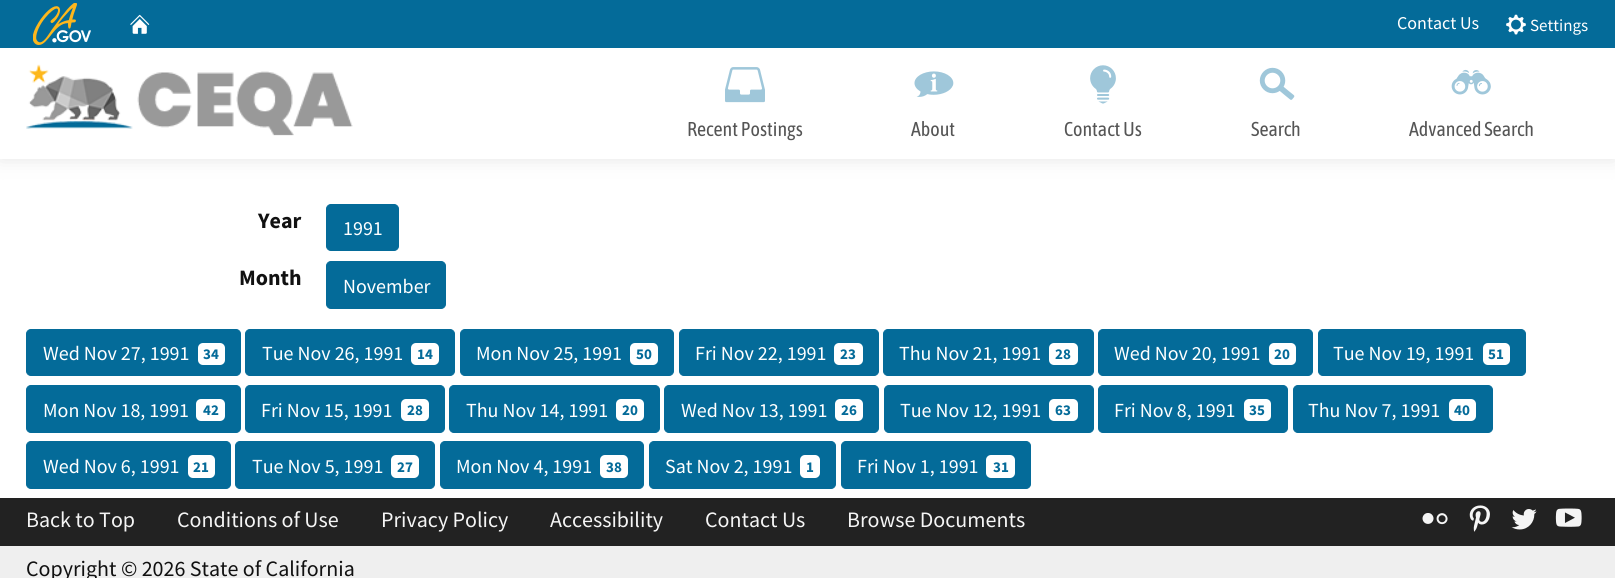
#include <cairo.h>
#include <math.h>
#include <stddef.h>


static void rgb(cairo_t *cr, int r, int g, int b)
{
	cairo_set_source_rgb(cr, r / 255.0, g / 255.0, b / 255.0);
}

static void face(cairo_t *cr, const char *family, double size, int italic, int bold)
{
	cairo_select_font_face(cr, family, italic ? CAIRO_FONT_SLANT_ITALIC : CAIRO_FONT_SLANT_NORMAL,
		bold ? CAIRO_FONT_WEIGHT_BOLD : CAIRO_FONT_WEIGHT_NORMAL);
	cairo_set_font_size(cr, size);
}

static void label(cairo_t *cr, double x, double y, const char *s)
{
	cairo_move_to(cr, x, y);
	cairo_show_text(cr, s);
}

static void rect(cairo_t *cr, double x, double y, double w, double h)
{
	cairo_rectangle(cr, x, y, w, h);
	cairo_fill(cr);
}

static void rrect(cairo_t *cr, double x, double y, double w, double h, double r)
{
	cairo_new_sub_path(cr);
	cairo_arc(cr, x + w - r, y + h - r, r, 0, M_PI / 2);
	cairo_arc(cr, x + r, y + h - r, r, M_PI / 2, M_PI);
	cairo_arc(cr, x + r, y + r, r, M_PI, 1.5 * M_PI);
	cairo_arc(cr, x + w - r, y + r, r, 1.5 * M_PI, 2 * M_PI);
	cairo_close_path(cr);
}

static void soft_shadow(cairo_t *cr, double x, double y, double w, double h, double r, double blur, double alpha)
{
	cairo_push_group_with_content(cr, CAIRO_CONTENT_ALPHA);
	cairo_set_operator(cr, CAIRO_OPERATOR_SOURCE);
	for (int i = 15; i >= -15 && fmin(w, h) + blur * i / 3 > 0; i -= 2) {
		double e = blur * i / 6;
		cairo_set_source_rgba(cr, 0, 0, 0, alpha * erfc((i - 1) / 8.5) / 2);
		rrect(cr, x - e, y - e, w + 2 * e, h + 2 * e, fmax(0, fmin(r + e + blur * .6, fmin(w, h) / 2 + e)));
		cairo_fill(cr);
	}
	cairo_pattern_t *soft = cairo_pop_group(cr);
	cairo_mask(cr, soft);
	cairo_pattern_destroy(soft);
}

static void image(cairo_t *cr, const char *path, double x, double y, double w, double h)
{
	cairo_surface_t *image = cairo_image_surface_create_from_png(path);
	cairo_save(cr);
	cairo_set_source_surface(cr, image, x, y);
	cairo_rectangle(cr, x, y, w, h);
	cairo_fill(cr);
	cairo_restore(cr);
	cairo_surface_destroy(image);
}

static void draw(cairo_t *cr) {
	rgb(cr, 255, 255, 255);
	cairo_paint(cr);
	rgb(cr, 189, 189, 189);
	soft_shadow(cr, 0, 0, 1615, 159, 0, 9.5, 0.4);
	rgb(cr, 255, 255, 255);
	rect(cr, 0, 48, 1615, 111);
	rgb(cr, 4, 107, 153);
	rect(cr, 0, 0, 1615, 48);
	image(cr, "image0.png", 33, 3, 58, 42);
	image(cr, "image1.png", 130, 14, 20, 20);
	face(cr, "Source Sans Pro", 18, 0, 0);
	rgb(cr, 255, 255, 255);
	label(cr, 1397, 29, "Contact Us");
	image(cr, "image2.png", 1506, 14, 20, 21);
	face(cr, "Source Sans Pro", 17, 0, 0);
	label(cr, 1530, 31, "Settings");
	image(cr, "image3.png", 26, 64, 327, 72);
	image(cr, "image4.png", 725, 67, 40, 36);
	face(cr, "Asap Condensed", 20, 0, 0);
	rgb(cr, 85, 85, 85);
	label(cr, 687, 136, "Recent Postings");
	image(cr, "image5.png", 914, 71, 40, 26);
	label(cr, 911, 136, "About");
	image(cr, "image6.png", 1090, 65, 26, 39);
	label(cr, 1064, 136, "Contact Us");
	image(cr, "image7.png", 1259, 67, 36, 33);
	label(cr, 1251, 136, "Search");
	image(cr, "image8.png", 1451, 69, 40, 26);
	label(cr, 1409, 136, "Advanced Search");
	face(cr, "Source Sans Pro", 22, 0, 1);
	rgb(cr, 17, 17, 17);
	label(cr, 258, 228, "Year");
	rgb(cr, 4, 107, 153);
	rrect(cr, 326.5, 204.5, 72, 46, 4.5);
	cairo_fill_preserve(cr);
	cairo_set_line_width(cr, 1);
	cairo_stroke(cr);
	face(cr, "Source Sans Pro", 20, 0, 0);
	rgb(cr, 255, 255, 255);
	label(cr, 343, 235, "1991");
	face(cr, "Source Sans Pro", 22, 0, 1);
	rgb(cr, 17, 17, 17);
	label(cr, 239, 285, "Month");
	rgb(cr, 4, 107, 153);
	rrect(cr, 326.5, 261.5, 119, 47, 4.5);
	cairo_fill_preserve(cr);
	cairo_stroke(cr);
	face(cr, "Source Sans Pro", 20, 0, 0);
	rgb(cr, 255, 255, 255);
	label(cr, 343, 293, "November");
	rgb(cr, 4, 107, 153);
	rrect(cr, 26.5, 329.5, 214, 46, 4.5);
	cairo_fill_preserve(cr);
	cairo_stroke(cr);
	rgb(cr, 255, 255, 255);
	label(cr, 43, 360, "Wed Nov 27, 1991");
	rrect(cr, 198, 343, 27, 22, 5);
	cairo_fill(cr);
	face(cr, "Source Sans Pro", 15, 0, 1);
	rgb(cr, 4, 107, 153);
	label(cr, 203, 359, "34");
	rrect(cr, 245.5, 329.5, 209, 46, 4.5);
	cairo_fill_preserve(cr);
	cairo_stroke(cr);
	face(cr, "Source Sans Pro", 20, 0, 0);
	rgb(cr, 255, 255, 255);
	label(cr, 262, 360, "Tue Nov 26, 1991");
	rrect(cr, 411, 343, 28, 22, 5);
	cairo_fill(cr);
	face(cr, "Source Sans Pro", 15, 0, 1);
	rgb(cr, 4, 107, 153);
	label(cr, 417, 359, "14");
	rrect(cr, 460.5, 329.5, 213, 46, 4.5);
	cairo_fill_preserve(cr);
	cairo_stroke(cr);
	face(cr, "Source Sans Pro", 20, 0, 0);
	rgb(cr, 255, 255, 255);
	label(cr, 476, 360, "Mon Nov 25, 1991");
	rrect(cr, 630, 343, 28, 22, 5);
	cairo_fill(cr);
	face(cr, "Source Sans Pro", 15, 0, 1);
	rgb(cr, 4, 107, 153);
	label(cr, 636, 359, "50");
	rrect(cr, 679.5, 329.5, 199, 46, 4.5);
	cairo_fill_preserve(cr);
	cairo_stroke(cr);
	face(cr, "Source Sans Pro", 20, 0, 0);
	rgb(cr, 255, 255, 255);
	label(cr, 695, 360, "Fri Nov 22, 1991");
	rrect(cr, 834, 343, 29, 22, 5);
	cairo_fill(cr);
	face(cr, "Source Sans Pro", 15, 0, 1);
	rgb(cr, 4, 107, 153);
	label(cr, 840, 359, "23");
	rrect(cr, 883.5, 329.5, 210, 46, 4.5);
	cairo_fill_preserve(cr);
	cairo_stroke(cr);
	face(cr, "Source Sans Pro", 20, 0, 0);
	rgb(cr, 255, 255, 255);
	label(cr, 899, 360, "Thu Nov 21, 1991");
	rrect(cr, 1049, 343, 29, 22, 5);
	cairo_fill(cr);
	face(cr, "Source Sans Pro", 15, 0, 1);
	rgb(cr, 4, 107, 153);
	label(cr, 1055, 359, "28");
	rrect(cr, 1098.5, 329.5, 214, 46, 4.5);
	cairo_fill_preserve(cr);
	cairo_stroke(cr);
	face(cr, "Source Sans Pro", 20, 0, 0);
	rgb(cr, 255, 255, 255);
	label(cr, 1114, 360, "Wed Nov 20, 1991");
	rrect(cr, 1269, 343, 27, 22, 5);
	cairo_fill(cr);
	face(cr, "Source Sans Pro", 15, 0, 1);
	rgb(cr, 4, 107, 153);
	label(cr, 1274, 359, "20");
	rrect(cr, 1318.5, 329.5, 207, 46, 4.5);
	cairo_fill_preserve(cr);
	cairo_stroke(cr);
	face(cr, "Source Sans Pro", 20, 0, 0);
	rgb(cr, 255, 255, 255);
	label(cr, 1333, 360, "Tue Nov 19, 1991");
	rrect(cr, 1483, 343, 27, 22, 5);
	cairo_fill(cr);
	face(cr, "Source Sans Pro", 15, 0, 1);
	rgb(cr, 4, 107, 153);
	label(cr, 1488, 359, "51");
	rrect(cr, 26.5, 385.5, 214, 47, 4.5);
	cairo_fill_preserve(cr);
	cairo_stroke(cr);
	face(cr, "Source Sans Pro", 20, 0, 0);
	rgb(cr, 255, 255, 255);
	label(cr, 43, 417, "Mon Nov 18, 1991");
	rrect(cr, 196, 399, 29, 22, 5);
	cairo_fill(cr);
	face(cr, "Source Sans Pro", 15, 0, 1);
	rgb(cr, 4, 107, 153);
	label(cr, 203, 415, "42");
	rrect(cr, 245.5, 385.5, 199, 47, 4.5);
	cairo_fill_preserve(cr);
	cairo_stroke(cr);
	face(cr, "Source Sans Pro", 20, 0, 0);
	rgb(cr, 255, 255, 255);
	label(cr, 261, 417, "Fri Nov 15, 1991");
	rrect(cr, 401, 399, 28, 22, 5);
	cairo_fill(cr);
	face(cr, "Source Sans Pro", 15, 0, 1);
	rgb(cr, 4, 107, 153);
	label(cr, 407, 415, "28");
	rrect(cr, 449.5, 385.5, 210, 47, 4.5);
	cairo_fill_preserve(cr);
	cairo_stroke(cr);
	face(cr, "Source Sans Pro", 20, 0, 0);
	rgb(cr, 255, 255, 255);
	label(cr, 466, 417, "Thu Nov 14, 1991");
	rrect(cr, 616, 399, 28, 22, 5);
	cairo_fill(cr);
	face(cr, "Source Sans Pro", 15, 0, 1);
	rgb(cr, 4, 107, 153);
	label(cr, 622, 415, "20");
	rrect(cr, 664.5, 385.5, 214, 47, 4.5);
	cairo_fill_preserve(cr);
	cairo_stroke(cr);
	face(cr, "Source Sans Pro", 20, 0, 0);
	rgb(cr, 255, 255, 255);
	label(cr, 681, 417, "Wed Nov 13, 1991");
	rrect(cr, 835, 399, 28, 22, 5);
	cairo_fill(cr);
	face(cr, "Source Sans Pro", 15, 0, 1);
	rgb(cr, 4, 107, 153);
	label(cr, 841, 415, "26");
	rrect(cr, 884.5, 385.5, 209, 47, 4.5);
	cairo_fill_preserve(cr);
	cairo_stroke(cr);
	face(cr, "Source Sans Pro", 20, 0, 0);
	rgb(cr, 255, 255, 255);
	label(cr, 900, 417, "Tue Nov 12, 1991");
	rrect(cr, 1049, 399, 29, 22, 5);
	cairo_fill(cr);
	face(cr, "Source Sans Pro", 15, 0, 1);
	rgb(cr, 4, 107, 153);
	label(cr, 1055, 415, "63");
	rrect(cr, 1098.5, 385.5, 189, 47, 4.5);
	cairo_fill_preserve(cr);
	cairo_stroke(cr);
	face(cr, "Source Sans Pro", 20, 0, 0);
	rgb(cr, 255, 255, 255);
	label(cr, 1114, 417, "Fri Nov 8, 1991");
	rrect(cr, 1244, 399, 27, 22, 5);
	cairo_fill(cr);
	face(cr, "Source Sans Pro", 15, 0, 1);
	rgb(cr, 4, 107, 153);
	label(cr, 1249, 415, "35");
	rrect(cr, 1293.5, 385.5, 199, 47, 4.5);
	cairo_fill_preserve(cr);
	cairo_stroke(cr);
	face(cr, "Source Sans Pro", 20, 0, 0);
	rgb(cr, 255, 255, 255);
	label(cr, 1308, 417, "Thu Nov 7, 1991");
	rrect(cr, 1449, 399, 27, 22, 5);
	cairo_fill(cr);
	face(cr, "Source Sans Pro", 15, 0, 1);
	rgb(cr, 4, 107, 153);
	label(cr, 1454, 415, "40");
	rrect(cr, 26.5, 441.5, 204, 47, 4.5);
	cairo_fill_preserve(cr);
	cairo_stroke(cr);
	face(cr, "Source Sans Pro", 20, 0, 0);
	rgb(cr, 255, 255, 255);
	label(cr, 43, 473, "Wed Nov 6, 1991");
	rrect(cr, 188, 455, 27, 23, 5);
	cairo_fill(cr);
	face(cr, "Source Sans Pro", 15, 0, 1);
	rgb(cr, 4, 107, 153);
	label(cr, 193, 472, "21");
	rrect(cr, 235.5, 441.5, 199, 47, 4.5);
	cairo_fill_preserve(cr);
	cairo_stroke(cr);
	face(cr, "Source Sans Pro", 20, 0, 0);
	rgb(cr, 255, 255, 255);
	label(cr, 252, 473, "Tue Nov 5, 1991");
	rrect(cr, 391, 455, 28, 23, 5);
	cairo_fill(cr);
	face(cr, "Source Sans Pro", 15, 0, 1);
	rgb(cr, 4, 107, 153);
	label(cr, 397, 472, "27");
	rrect(cr, 440.5, 441.5, 203, 47, 4.5);
	cairo_fill_preserve(cr);
	cairo_stroke(cr);
	face(cr, "Source Sans Pro", 20, 0, 0);
	rgb(cr, 255, 255, 255);
	label(cr, 456, 473, "Mon Nov 4, 1991");
	rrect(cr, 600, 455, 28, 23, 5);
	cairo_fill(cr);
	face(cr, "Source Sans Pro", 15, 0, 1);
	rgb(cr, 4, 107, 153);
	label(cr, 606, 472, "38");
	rrect(cr, 649.5, 441.5, 186, 47, 4.5);
	cairo_fill_preserve(cr);
	cairo_stroke(cr);
	face(cr, "Source Sans Pro", 20, 0, 0);
	rgb(cr, 255, 255, 255);
	label(cr, 665, 473, "Sat Nov 2, 1991");
	rrect(cr, 800, 455, 20, 23, 5);
	cairo_fill(cr);
	face(cr, "Source Sans Pro", 15, 0, 1);
	rgb(cr, 4, 107, 153);
	label(cr, 806, 472, "1");
	rrect(cr, 841.5, 441.5, 189, 47, 4.5);
	cairo_fill_preserve(cr);
	cairo_stroke(cr);
	face(cr, "Source Sans Pro", 20, 0, 0);
	rgb(cr, 255, 255, 255);
	label(cr, 857, 473, "Fri Nov 1, 1991");
	rrect(cr, 986, 455, 29, 23, 5);
	cairo_fill(cr);
	face(cr, "Source Sans Pro", 15, 0, 1);
	rgb(cr, 4, 107, 153);
	label(cr, 993, 472, "31");
	rgb(cr, 34, 34, 34);
	rect(cr, 0, 498, 1615, 48);
	face(cr, "Source Sans Pro", 22, 0, 0);
	rgb(cr, 245, 245, 245);
	label(cr, 26, 527, "Back to Top");
	label(cr, 177, 527, "Conditions of Use");
	label(cr, 381, 527, "Privacy Policy");
	label(cr, 550, 527, "Accessibility");
	label(cr, 705, 527, "Contact Us");
	label(cr, 847, 527, "Browse Documents");
	image(cr, "image9.png", 1422, 513, 26, 12);
	image(cr, "image10.png", 1469, 505, 21, 27);
	image(cr, "image11.png", 1511, 509, 26, 21);
	image(cr, "image12.png", 1555, 508, 27, 19);
	rgb(cr, 239, 239, 239);
	rect(cr, 0, 546, 1615, 32);
	rgb(cr, 17, 17, 17);
	label(cr, 26, 576, "Copyright © 2026 State of California");
}

int main(void) {
	cairo_surface_t *surface = cairo_image_surface_create(CAIRO_FORMAT_RGB24, 1615, 578);
	cairo_t *cr = cairo_create(surface);
	cairo_font_options_t *options = cairo_font_options_create();
	cairo_font_options_set_hint_metrics(options, CAIRO_HINT_METRICS_OFF);
	cairo_font_options_set_hint_style(options, CAIRO_HINT_STYLE_NONE);
	cairo_set_font_options(cr, options);
	cairo_set_miter_limit(cr, 4);
	draw(cr);
	cairo_surface_write_to_png(surface, "render.png");
	cairo_font_options_destroy(options);
	cairo_destroy(cr);
	cairo_surface_destroy(surface);
	return 0;
}
